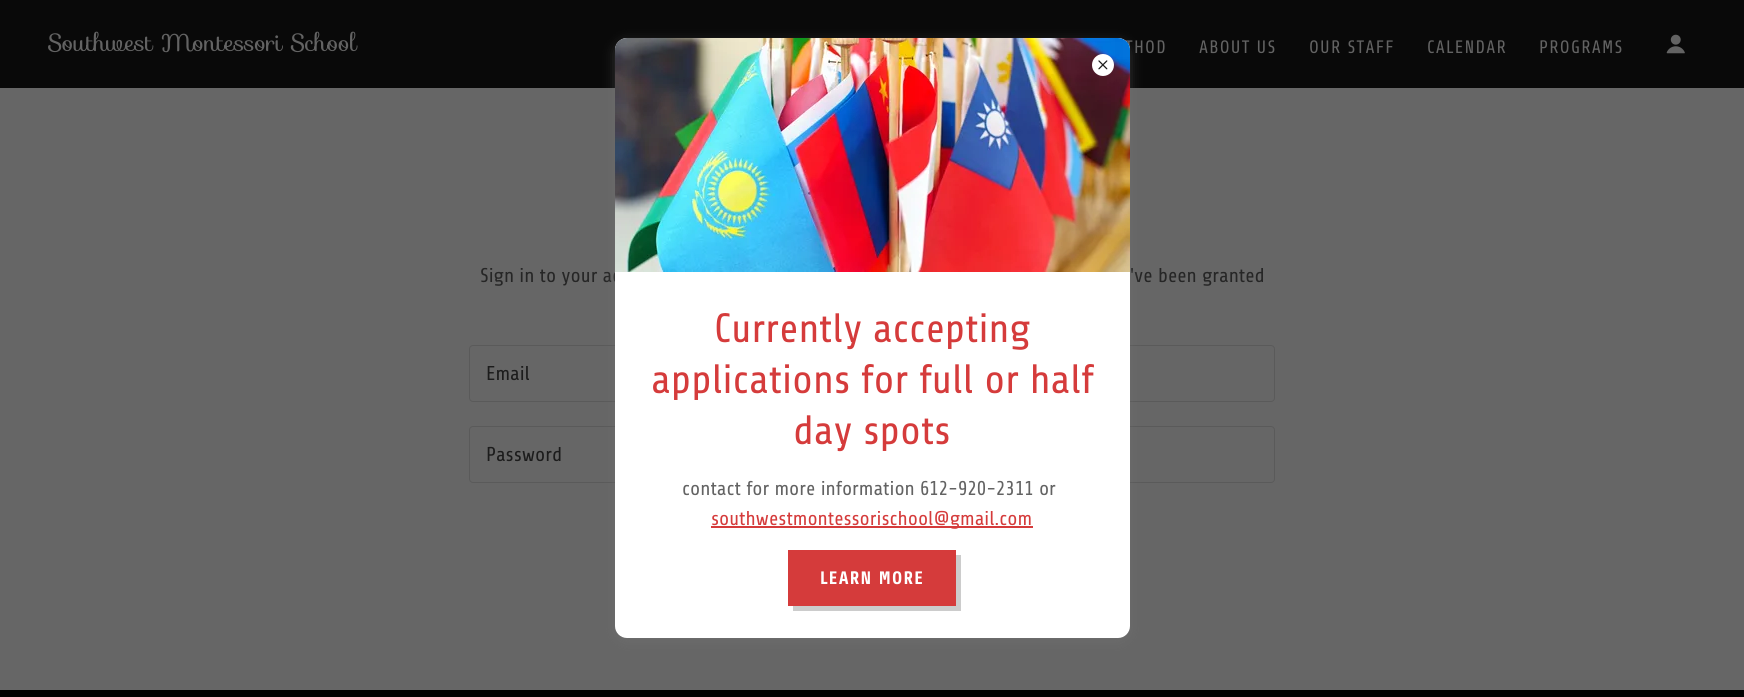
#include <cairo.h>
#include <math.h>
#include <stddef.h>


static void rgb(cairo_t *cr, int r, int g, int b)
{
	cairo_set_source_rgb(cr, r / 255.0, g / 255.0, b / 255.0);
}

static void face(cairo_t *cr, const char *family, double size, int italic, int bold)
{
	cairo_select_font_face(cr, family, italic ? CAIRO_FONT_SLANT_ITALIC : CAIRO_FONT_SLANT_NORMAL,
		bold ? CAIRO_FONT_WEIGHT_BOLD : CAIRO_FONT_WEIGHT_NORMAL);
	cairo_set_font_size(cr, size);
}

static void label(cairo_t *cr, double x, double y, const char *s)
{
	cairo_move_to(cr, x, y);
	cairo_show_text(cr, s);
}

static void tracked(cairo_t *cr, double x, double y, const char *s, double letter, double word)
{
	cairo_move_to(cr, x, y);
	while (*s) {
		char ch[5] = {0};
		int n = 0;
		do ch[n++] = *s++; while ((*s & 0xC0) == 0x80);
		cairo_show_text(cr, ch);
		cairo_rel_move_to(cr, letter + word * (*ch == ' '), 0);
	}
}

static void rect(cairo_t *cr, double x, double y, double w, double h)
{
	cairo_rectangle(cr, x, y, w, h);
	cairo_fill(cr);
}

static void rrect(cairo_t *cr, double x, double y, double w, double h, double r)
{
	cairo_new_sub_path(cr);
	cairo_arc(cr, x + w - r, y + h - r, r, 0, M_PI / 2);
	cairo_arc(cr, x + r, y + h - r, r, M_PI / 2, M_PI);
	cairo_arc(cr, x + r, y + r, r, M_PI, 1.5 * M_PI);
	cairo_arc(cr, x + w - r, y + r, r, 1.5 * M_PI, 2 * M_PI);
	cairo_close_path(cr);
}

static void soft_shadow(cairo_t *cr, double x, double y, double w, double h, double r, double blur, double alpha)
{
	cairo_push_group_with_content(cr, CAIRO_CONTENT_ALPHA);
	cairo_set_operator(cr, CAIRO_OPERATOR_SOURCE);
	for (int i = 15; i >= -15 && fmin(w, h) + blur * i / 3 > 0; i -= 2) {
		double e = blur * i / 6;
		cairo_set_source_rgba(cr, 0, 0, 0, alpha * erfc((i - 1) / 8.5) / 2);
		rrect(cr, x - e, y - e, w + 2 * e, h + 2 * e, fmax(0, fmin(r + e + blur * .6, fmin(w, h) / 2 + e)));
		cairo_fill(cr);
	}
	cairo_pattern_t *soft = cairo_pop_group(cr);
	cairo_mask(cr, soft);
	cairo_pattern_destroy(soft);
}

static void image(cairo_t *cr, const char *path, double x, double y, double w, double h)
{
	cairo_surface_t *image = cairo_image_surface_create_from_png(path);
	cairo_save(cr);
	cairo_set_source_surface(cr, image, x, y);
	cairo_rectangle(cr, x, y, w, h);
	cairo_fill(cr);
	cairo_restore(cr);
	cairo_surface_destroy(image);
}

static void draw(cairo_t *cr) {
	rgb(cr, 0, 0, 0);
	cairo_paint(cr);
	rgb(cr, 9, 9, 9);
	rect(cr, 0, 0, 1744, 88);
	face(cr, "Sofia", 24, 0, 0);
	rgb(cr, 99, 99, 99);
	label(cr, 48, 51, "Southwest Montessori School");
	face(cr, "Share", 18, 0, 0);
	tracked(cr, 1125, 53, "THOD", 1.25, 0);
	tracked(cr, 1199, 53, "ABOUT US", 1.25, 0);
	tracked(cr, 1309, 53, "OUR STAFF", 1.25, 0);
	tracked(cr, 1427, 53, "CALENDAR", 1.25, 0);
	tracked(cr, 1539, 53, "PROGRAMS", 1.25, 0);
	image(cr, "image0.png", 1666, 34, 19, 20);
	rgb(cr, 102, 102, 102);
	rect(cr, 0, 88, 1744, 602);
	face(cr, "Share", 20, 0, 0);
	rgb(cr, 38, 38, 38);
	label(cr, 480, 282, "Sign in to your ac");
	label(cr, 1130, 282, "'ve been granted");
	rrect(cr, 469.5, 345.5, 805, 56, 3.5);
	rgb(cr, 90, 90, 90);
	cairo_set_line_width(cr, 1);
	cairo_stroke(cr);
	rgb(cr, 28, 28, 28);
	label(cr, 486, 380, "Email");
	rrect(cr, 469.5, 426.5, 805, 56, 3.5);
	rgb(cr, 90, 90, 90);
	cairo_stroke(cr);
	rgb(cr, 28, 28, 28);
	label(cr, 486, 461, "Password");
	rgb(cr, 117, 117, 117);
	soft_shadow(cr, 615, 42, 515, 600, 12, 6, 0.4);
	rgb(cr, 255, 255, 255);
	rrect(cr, 615, 38, 515, 600, 12);
	cairo_fill(cr);
	image(cr, "image2.png", 615, 38, 515, 234);
	cairo_arc(cr, 1103, 65, 11, 0, 2 * M_PI);
	cairo_fill(cr);
	image(cr, "image1.png", 1098, 60, 10, 10);
	face(cr, "Share", 41, 0, 0);
	rgb(cr, 213, 59, 59);
	label(cr, 714, 342, "Currently accepting");
	label(cr, 651, 393, "applications for full or half");
	label(cr, 793, 444, "day spots");
	face(cr, "Share", 20, 0, 0);
	rgb(cr, 99, 99, 99);
	label(cr, 682, 495, "contact for more information 612-920-2311 or");
	rgb(cr, 213, 59, 59);
	rect(cr, 711, 526, 322, 2);
	label(cr, 711, 525, "southwestmontessorischool@gmail.com");
	rect(cr, 788, 550, 168, 56);
	rgb(cr, 204, 204, 204);
	cairo_new_path(cr);
	cairo_move_to(cr, 793, 606);
	cairo_line_to(cr, 793, 611);
	cairo_line_to(cr, 961, 611);
	cairo_line_to(cr, 961, 555);
	cairo_line_to(cr, 956, 555);
	cairo_line_to(cr, 956, 606);
	cairo_close_path(cr);
	cairo_fill(cr);
	face(cr, "Share", 18, 0, 1);
	rgb(cr, 255, 255, 255);
	tracked(cr, 820, 584, "LEARN MORE", 1.25, 0);
}

int main(void) {
	cairo_surface_t *surface = cairo_image_surface_create(CAIRO_FORMAT_RGB24, 1744, 697);
	cairo_t *cr = cairo_create(surface);
	cairo_font_options_t *options = cairo_font_options_create();
	cairo_font_options_set_hint_metrics(options, CAIRO_HINT_METRICS_OFF);
	cairo_font_options_set_hint_style(options, CAIRO_HINT_STYLE_NONE);
	cairo_set_font_options(cr, options);
	cairo_set_miter_limit(cr, 4);
	draw(cr);
	cairo_surface_write_to_png(surface, "render.png");
	cairo_font_options_destroy(options);
	cairo_destroy(cr);
	cairo_surface_destroy(surface);
	return 0;
}
